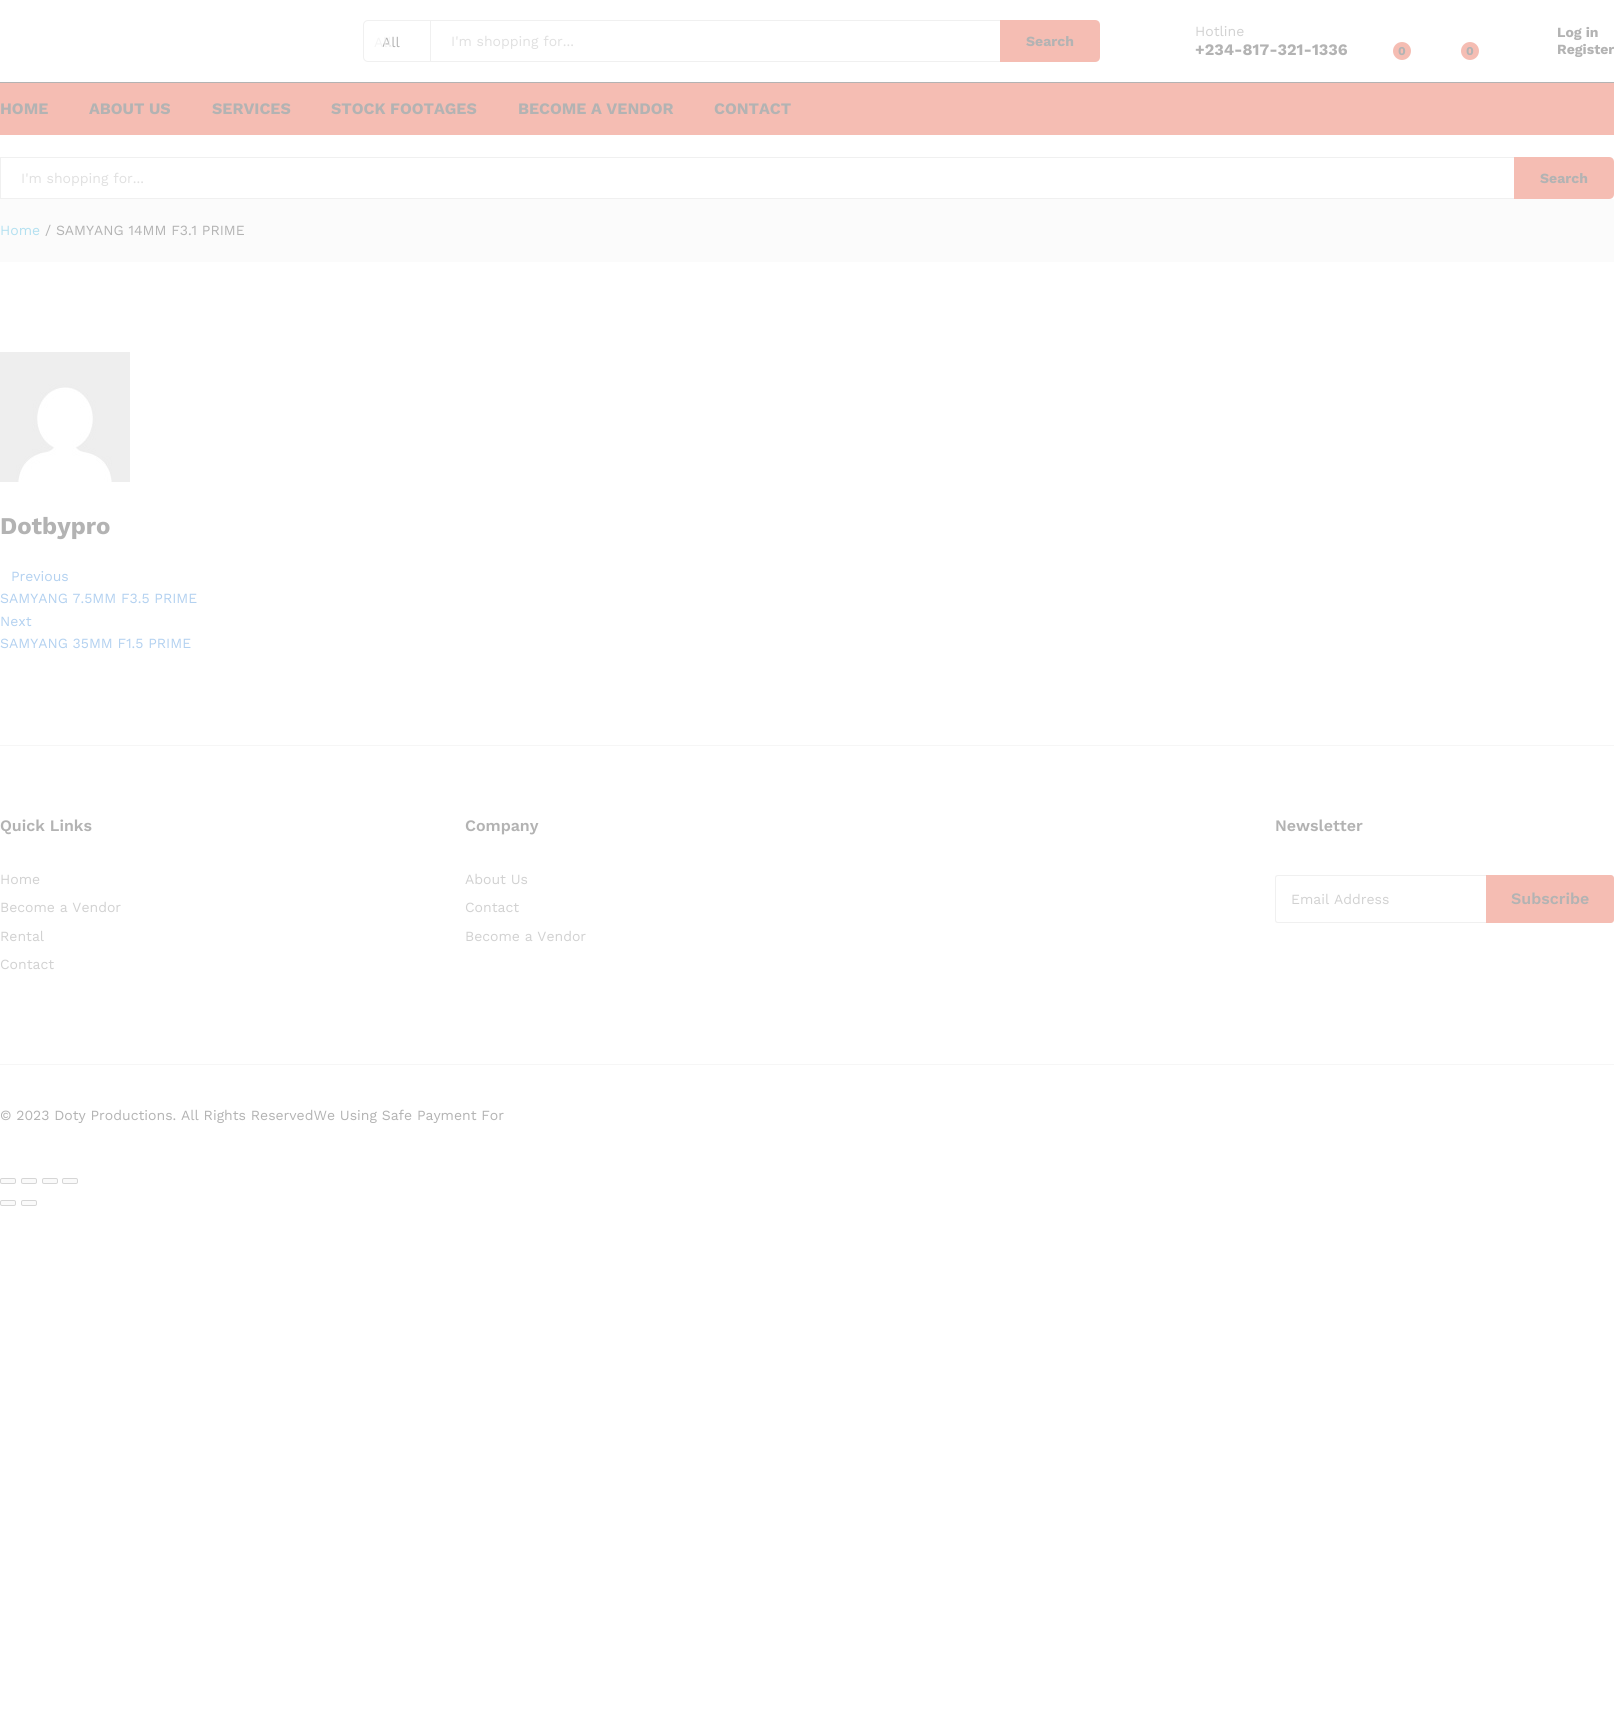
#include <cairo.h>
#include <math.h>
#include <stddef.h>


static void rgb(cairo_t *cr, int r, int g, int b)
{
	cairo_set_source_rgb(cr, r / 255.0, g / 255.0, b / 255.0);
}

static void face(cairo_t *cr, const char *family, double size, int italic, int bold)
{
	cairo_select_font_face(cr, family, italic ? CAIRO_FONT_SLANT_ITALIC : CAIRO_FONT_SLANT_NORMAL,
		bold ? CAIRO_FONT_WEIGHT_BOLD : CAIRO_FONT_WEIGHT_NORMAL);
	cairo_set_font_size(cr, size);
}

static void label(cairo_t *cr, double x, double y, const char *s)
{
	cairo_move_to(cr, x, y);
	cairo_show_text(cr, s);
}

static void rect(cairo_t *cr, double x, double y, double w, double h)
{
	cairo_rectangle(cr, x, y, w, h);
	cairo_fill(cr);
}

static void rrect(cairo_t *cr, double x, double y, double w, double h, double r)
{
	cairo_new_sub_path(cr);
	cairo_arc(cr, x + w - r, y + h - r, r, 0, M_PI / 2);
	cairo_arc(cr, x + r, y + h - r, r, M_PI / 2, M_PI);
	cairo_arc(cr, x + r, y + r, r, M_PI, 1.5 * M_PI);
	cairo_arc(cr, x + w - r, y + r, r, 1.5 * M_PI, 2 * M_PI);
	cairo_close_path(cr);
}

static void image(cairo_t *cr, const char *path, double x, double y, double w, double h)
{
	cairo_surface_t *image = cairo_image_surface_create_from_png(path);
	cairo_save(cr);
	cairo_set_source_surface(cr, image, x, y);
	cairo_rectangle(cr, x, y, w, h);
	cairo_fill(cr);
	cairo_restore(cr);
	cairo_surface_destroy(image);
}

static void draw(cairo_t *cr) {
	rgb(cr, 255, 255, 255);
	cairo_paint(cr);
	cairo_new_path(cr);
	cairo_move_to(cr, 368, 20.5);
	cairo_line_to(cr, 430.5, 20.5);
	cairo_line_to(cr, 430.5, 61.5);
	cairo_line_to(cr, 368, 61.5);
	cairo_curve_to(cr, 365.5, 61.5, 363.5, 59.5, 363.5, 57);
	cairo_line_to(cr, 363.5, 25);
	cairo_curve_to(cr, 363.5, 22.5, 365.5, 20.5, 368, 20.5);
	cairo_close_path(cr);
	rgb(cr, 240, 240, 240);
	cairo_set_line_width(cr, 1);
	cairo_stroke(cr);
	face(cr, "Work Sans", 14, 0, 0);
	rgb(cr, 179, 179, 179);
	label(cr, 382, 47, "All");
	rgb(cr, 244, 244, 244);
	label(cr, 374, 47, "All");
	rgb(cr, 240, 240, 240);
	rect(cr, 431, 20, 569, 1);
	rect(cr, 431, 61, 569, 1);
	rgb(cr, 224, 224, 224);
	label(cr, 451, 46, "I'm shopping for...");
	rgb(cr, 245, 189, 179);
	cairo_new_path(cr);
	cairo_move_to(cr, 1000, 20);
	cairo_line_to(cr, 1095, 20);
	cairo_curve_to(cr, 1098, 20, 1100, 22, 1100, 25);
	cairo_line_to(cr, 1100, 57);
	cairo_curve_to(cr, 1100, 60, 1098, 62, 1095, 62);
	cairo_line_to(cr, 1000, 62);
	cairo_close_path(cr);
	cairo_fill(cr);
	face(cr, "Work Sans", 14, 0, 1);
	rgb(cr, 179, 179, 179);
	label(cr, 1026, 46, "Search");
	face(cr, "Work Sans", 14, 0, 0);
	rgb(cr, 209, 209, 209);
	label(cr, 1195, 36, "Hotline");
	face(cr, "Work Sans", 16, 0, 1);
	rgb(cr, 179, 179, 179);
	label(cr, 1195, 55, "+234-817-321-1336");
	rgb(cr, 245, 189, 179);
	cairo_new_path(cr);
	cairo_arc(cr, 1402, 51, 9, 0, 2 * M_PI);
	cairo_fill(cr);
	face(cr, "Work Sans", 12, 0, 1);
	rgb(cr, 179, 179, 179);
	label(cr, 1398, 55, "0");
	rgb(cr, 245, 189, 179);
	cairo_new_path(cr);
	cairo_arc(cr, 1470, 51, 9, 0, 2 * M_PI);
	cairo_fill(cr);
	rgb(cr, 179, 179, 179);
	label(cr, 1466, 55, "0");
	face(cr, "Work Sans", 14, 0, 1);
	label(cr, 1557, 37, "Log in");
	label(cr, 1557, 54, "Register");
	rgb(cr, 245, 189, 179);
	rect(cr, 0, 83, 1614, 52);
	rgb(cr, 179, 179, 179);
	rect(cr, 0, 82, 1614, 1);
	face(cr, "Work Sans", 16, 0, 1);
	label(cr, 0, 114, "HOME");
	label(cr, 89, 114, "ABOUT US");
	label(cr, 212, 114, "SERVICES");
	label(cr, 331, 114, "STOCK FOOTAGES");
	label(cr, 518, 114, "BECOME A VENDOR");
	label(cr, 714, 114, "CONTACT");
	rgb(cr, 240, 240, 240);
	rect(cr, 0, 157, 1, 42);
	rect(cr, 1, 157, 1513, 1);
	rect(cr, 1, 198, 1513, 1);
	face(cr, "Work Sans", 14, 0, 0);
	rgb(cr, 224, 224, 224);
	label(cr, 21, 183, "I'm shopping for...");
	rgb(cr, 245, 189, 179);
	cairo_new_path(cr);
	cairo_move_to(cr, 1514, 157);
	cairo_line_to(cr, 1609, 157);
	cairo_curve_to(cr, 1612, 157, 1614, 159, 1614, 162);
	cairo_line_to(cr, 1614, 194);
	cairo_curve_to(cr, 1614, 197, 1612, 199, 1609, 199);
	cairo_line_to(cr, 1514, 199);
	cairo_close_path(cr);
	cairo_fill(cr);
	face(cr, "Work Sans", 14, 0, 1);
	rgb(cr, 179, 179, 179);
	label(cr, 1540, 183, "Search");
	rgb(cr, 251, 251, 251);
	rect(cr, 0, 199, 1614, 63);
	face(cr, "Work Sans", 14, 0, 0);
	rgb(cr, 179, 224, 240);
	label(cr, 0, 235, "Home");
	rgb(cr, 179, 179, 179);
	label(cr, 45, 235, "/ SAMYANG 14MM F3.1 PRIME");
	image(cr, "image0.png", 0, 352, 130, 130);
	face(cr, "Work Sans", 24, 0, 1);
	label(cr, 0, 534, "Dotbypro");
	face(cr, "Work Sans", 14, 0, 0);
	rgb(cr, 179, 209, 240);
	label(cr, 11, 581, "Previous");
	label(cr, 0, 603, "SAMYANG 7.5MM F3.5 PRIME");
	label(cr, 0, 626, "Next");
	label(cr, 0, 648, "SAMYANG 35MM F1.5 PRIME");
	rgb(cr, 246, 246, 246);
	rect(cr, 0, 745, 1614, 1);
	face(cr, "Work Sans SemiBold", 16, 0, 0);
	rgb(cr, 179, 179, 179);
	label(cr, 0, 831, "Quick Links");
	face(cr, "Work Sans", 14, 0, 0);
	rgb(cr, 209, 209, 209);
	label(cr, 0, 884, "Home");
	label(cr, 0, 912, "Become a Vendor");
	label(cr, 0, 941, "Rental");
	label(cr, 0, 969, "Contact");
	face(cr, "Work Sans SemiBold", 16, 0, 0);
	rgb(cr, 179, 179, 179);
	label(cr, 465, 831, "Company");
	face(cr, "Work Sans", 14, 0, 0);
	rgb(cr, 209, 209, 209);
	label(cr, 465, 884, "About Us");
	label(cr, 465, 912, "Contact");
	label(cr, 465, 941, "Become a Vendor");
	face(cr, "Work Sans SemiBold", 16, 0, 0);
	rgb(cr, 179, 179, 179);
	label(cr, 1275, 831, "Newsletter");
	rgb(cr, 240, 240, 240);
	cairo_set_fill_rule(cr, CAIRO_FILL_RULE_EVEN_ODD);
	cairo_new_path(cr);
	cairo_move_to(cr, 1278, 875);
	cairo_line_to(cr, 1486, 875);
	cairo_line_to(cr, 1486, 923);
	cairo_line_to(cr, 1278, 923);
	cairo_curve_to(cr, 1276, 923, 1275, 922, 1275, 920);
	cairo_line_to(cr, 1275, 878);
	cairo_curve_to(cr, 1275, 876, 1276, 875, 1278, 875);
	cairo_close_path(cr);
	cairo_move_to(cr, 1278, 876);
	cairo_line_to(cr, 1486, 876);
	cairo_line_to(cr, 1486, 922);
	cairo_line_to(cr, 1278, 922);
	cairo_curve_to(cr, 1277, 922, 1276, 921, 1276, 920);
	cairo_line_to(cr, 1276, 878);
	cairo_curve_to(cr, 1276, 877, 1277, 876, 1278, 876);
	cairo_close_path(cr);
	cairo_fill(cr);
	face(cr, "Work Sans", 14, 0, 0);
	rgb(cr, 209, 209, 209);
	label(cr, 1291, 904, "Email Address");
	rgb(cr, 245, 189, 179);
	cairo_new_path(cr);
	cairo_move_to(cr, 1486, 875);
	cairo_line_to(cr, 1611, 875);
	cairo_curve_to(cr, 1612.5, 875, 1614, 876.5, 1614, 878);
	cairo_line_to(cr, 1614, 920);
	cairo_curve_to(cr, 1614, 921.5, 1612.5, 923, 1611, 923);
	cairo_line_to(cr, 1486, 923);
	cairo_close_path(cr);
	cairo_fill(cr);
	face(cr, "Work Sans SemiBold", 16, 0, 0);
	rgb(cr, 179, 179, 179);
	label(cr, 1511, 904, "Subscribe");
	rgb(cr, 246, 246, 246);
	rect(cr, 0, 1064, 1614, 1);
	face(cr, "Work Sans", 14, 0, 0);
	rgb(cr, 179, 179, 179);
	label(cr, 0, 1120, "© 2023 Doty Productions. All Rights ReservedWe Using Safe Payment For");
	rgb(cr, 250, 250, 250);
	rrect(cr, 0.5, 1178.5, 15, 5, 1.5);
	cairo_fill_preserve(cr);
	rgb(cr, 214, 214, 214);
	cairo_stroke(cr);
	rgb(cr, 250, 250, 250);
	rrect(cr, 21.5, 1178.5, 15, 5, 1.5);
	cairo_fill_preserve(cr);
	rgb(cr, 214, 214, 214);
	cairo_stroke(cr);
	rgb(cr, 250, 250, 250);
	rrect(cr, 42.5, 1178.5, 15, 5, 1.5);
	cairo_fill_preserve(cr);
	rgb(cr, 214, 214, 214);
	cairo_stroke(cr);
	rgb(cr, 250, 250, 250);
	rrect(cr, 62.5, 1178.5, 15, 5, 1.5);
	cairo_fill_preserve(cr);
	rgb(cr, 214, 214, 214);
	cairo_stroke(cr);
	rgb(cr, 250, 250, 250);
	rrect(cr, 0.5, 1200.5, 15, 5, 1.5);
	cairo_fill_preserve(cr);
	rgb(cr, 214, 214, 214);
	cairo_stroke(cr);
	rgb(cr, 250, 250, 250);
	rrect(cr, 21.5, 1200.5, 15, 5, 1.5);
	cairo_fill_preserve(cr);
	rgb(cr, 214, 214, 214);
	cairo_stroke(cr);
}

int main(void) {
	cairo_surface_t *surface = cairo_image_surface_create(CAIRO_FORMAT_RGB24, 1614, 1723);
	cairo_t *cr = cairo_create(surface);
	cairo_font_options_t *options = cairo_font_options_create();
	cairo_font_options_set_hint_metrics(options, CAIRO_HINT_METRICS_OFF);
	cairo_font_options_set_hint_style(options, CAIRO_HINT_STYLE_NONE);
	cairo_set_font_options(cr, options);
	cairo_set_miter_limit(cr, 4);
	draw(cr);
	cairo_surface_write_to_png(surface, "render.png");
	cairo_font_options_destroy(options);
	cairo_destroy(cr);
	cairo_surface_destroy(surface);
	return 0;
}
